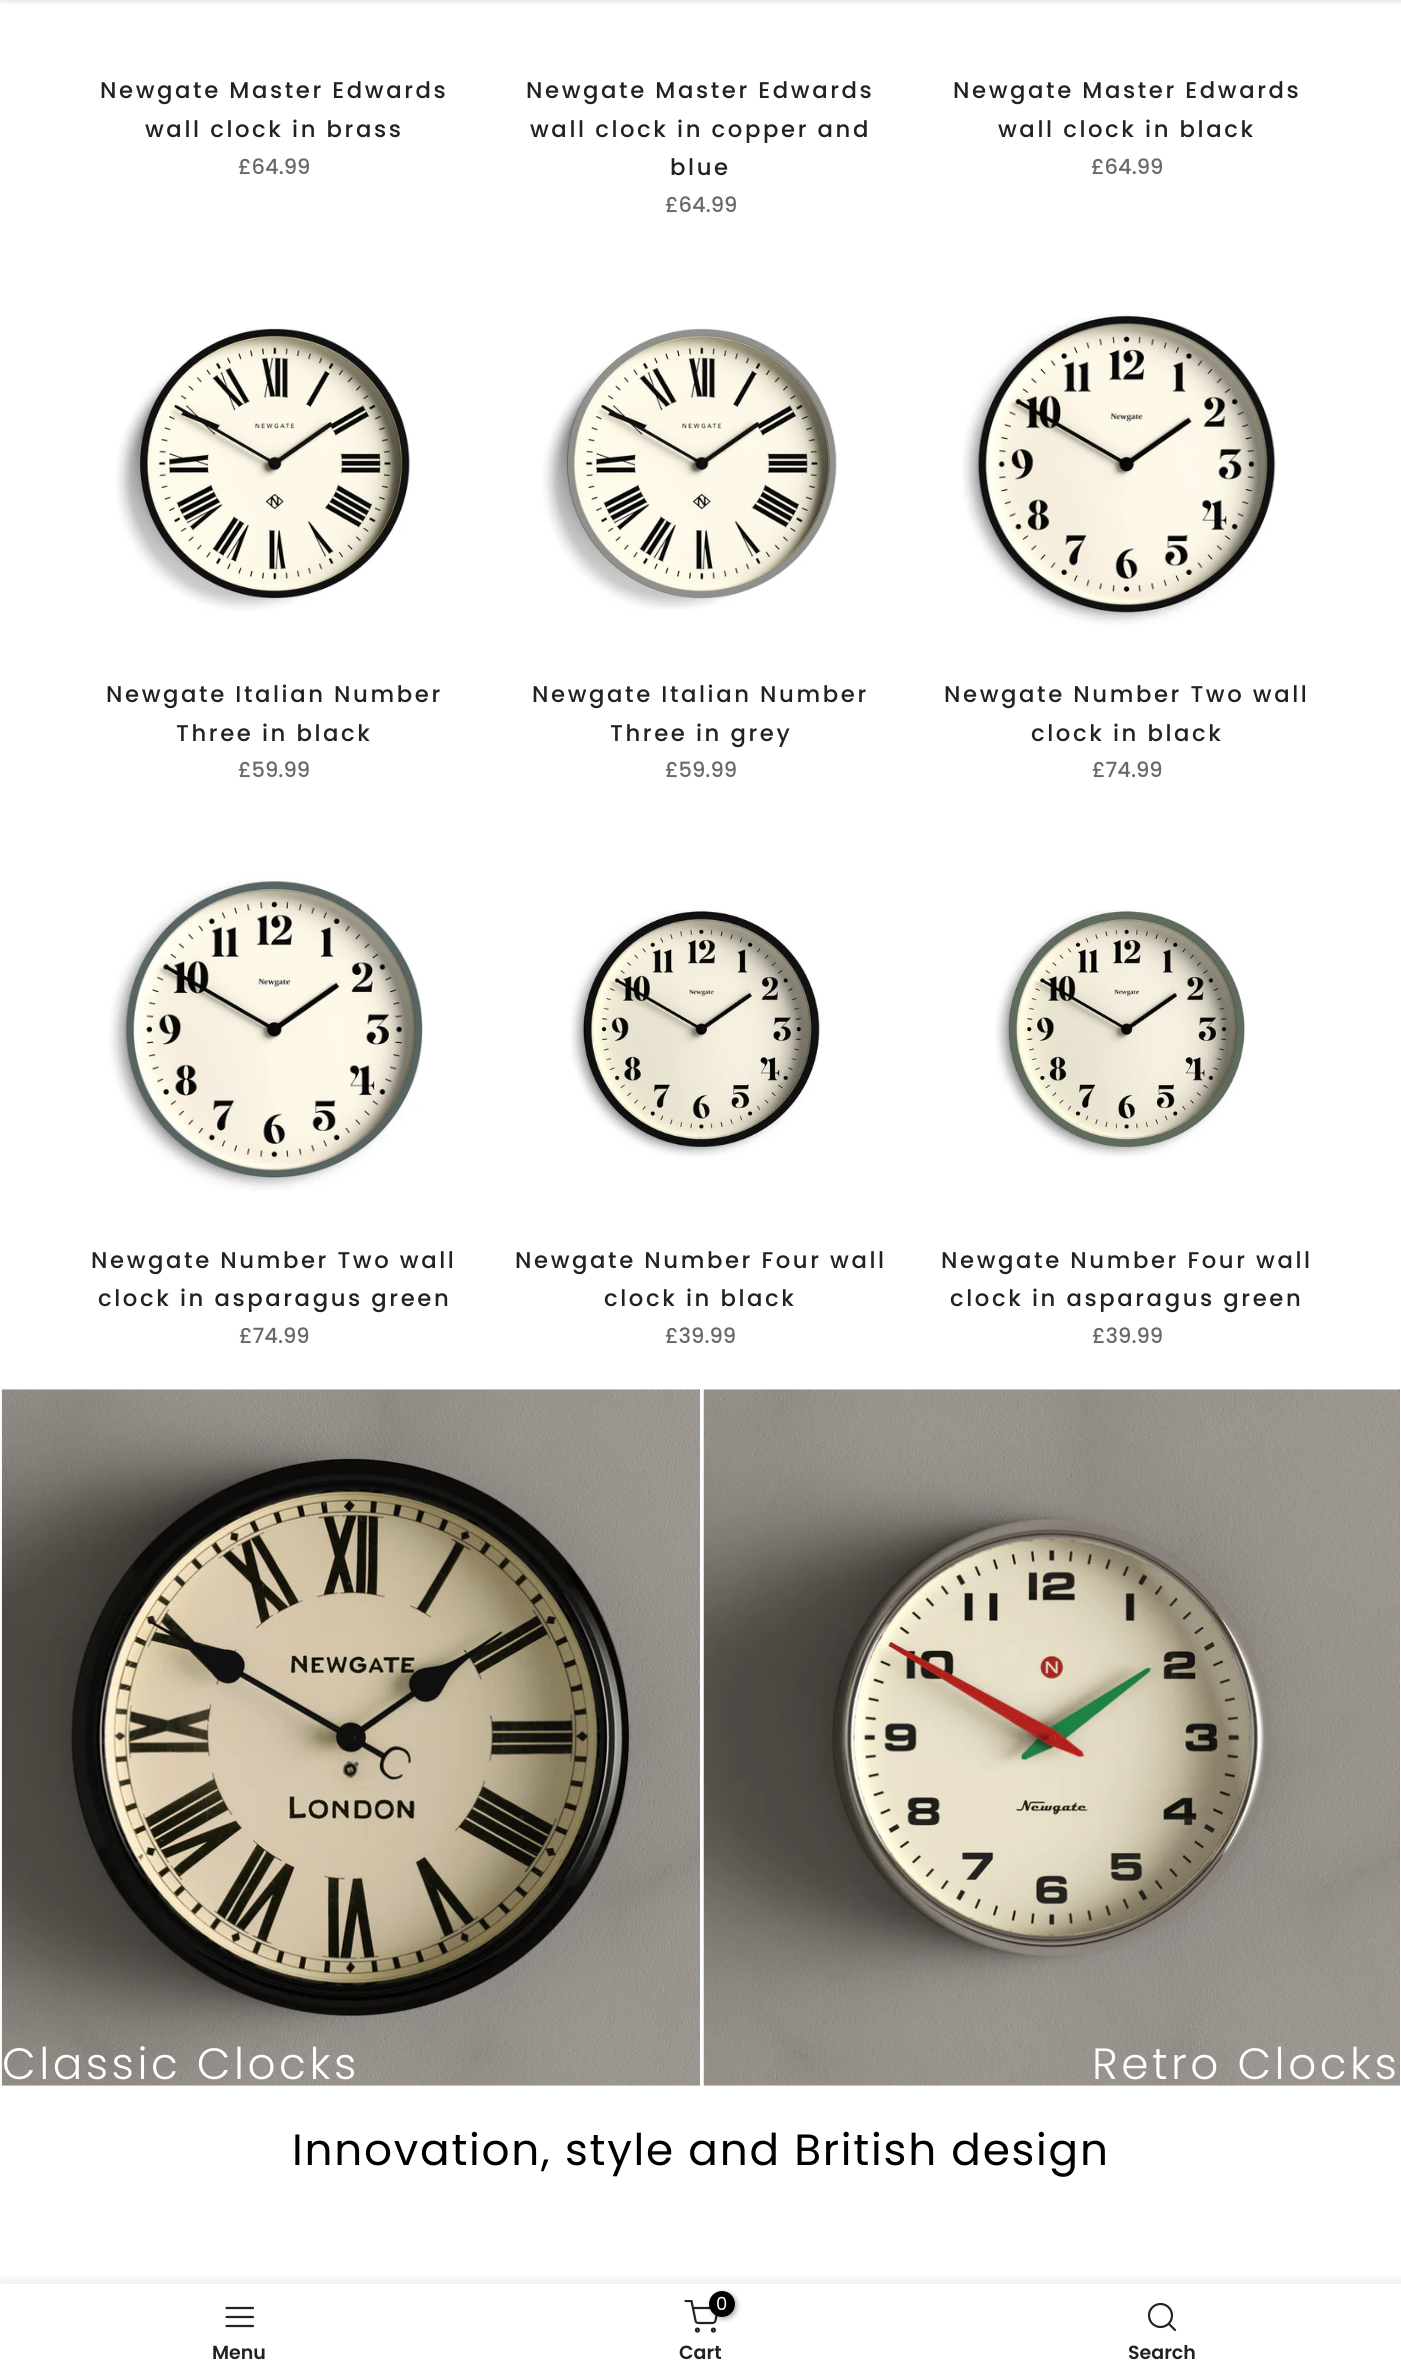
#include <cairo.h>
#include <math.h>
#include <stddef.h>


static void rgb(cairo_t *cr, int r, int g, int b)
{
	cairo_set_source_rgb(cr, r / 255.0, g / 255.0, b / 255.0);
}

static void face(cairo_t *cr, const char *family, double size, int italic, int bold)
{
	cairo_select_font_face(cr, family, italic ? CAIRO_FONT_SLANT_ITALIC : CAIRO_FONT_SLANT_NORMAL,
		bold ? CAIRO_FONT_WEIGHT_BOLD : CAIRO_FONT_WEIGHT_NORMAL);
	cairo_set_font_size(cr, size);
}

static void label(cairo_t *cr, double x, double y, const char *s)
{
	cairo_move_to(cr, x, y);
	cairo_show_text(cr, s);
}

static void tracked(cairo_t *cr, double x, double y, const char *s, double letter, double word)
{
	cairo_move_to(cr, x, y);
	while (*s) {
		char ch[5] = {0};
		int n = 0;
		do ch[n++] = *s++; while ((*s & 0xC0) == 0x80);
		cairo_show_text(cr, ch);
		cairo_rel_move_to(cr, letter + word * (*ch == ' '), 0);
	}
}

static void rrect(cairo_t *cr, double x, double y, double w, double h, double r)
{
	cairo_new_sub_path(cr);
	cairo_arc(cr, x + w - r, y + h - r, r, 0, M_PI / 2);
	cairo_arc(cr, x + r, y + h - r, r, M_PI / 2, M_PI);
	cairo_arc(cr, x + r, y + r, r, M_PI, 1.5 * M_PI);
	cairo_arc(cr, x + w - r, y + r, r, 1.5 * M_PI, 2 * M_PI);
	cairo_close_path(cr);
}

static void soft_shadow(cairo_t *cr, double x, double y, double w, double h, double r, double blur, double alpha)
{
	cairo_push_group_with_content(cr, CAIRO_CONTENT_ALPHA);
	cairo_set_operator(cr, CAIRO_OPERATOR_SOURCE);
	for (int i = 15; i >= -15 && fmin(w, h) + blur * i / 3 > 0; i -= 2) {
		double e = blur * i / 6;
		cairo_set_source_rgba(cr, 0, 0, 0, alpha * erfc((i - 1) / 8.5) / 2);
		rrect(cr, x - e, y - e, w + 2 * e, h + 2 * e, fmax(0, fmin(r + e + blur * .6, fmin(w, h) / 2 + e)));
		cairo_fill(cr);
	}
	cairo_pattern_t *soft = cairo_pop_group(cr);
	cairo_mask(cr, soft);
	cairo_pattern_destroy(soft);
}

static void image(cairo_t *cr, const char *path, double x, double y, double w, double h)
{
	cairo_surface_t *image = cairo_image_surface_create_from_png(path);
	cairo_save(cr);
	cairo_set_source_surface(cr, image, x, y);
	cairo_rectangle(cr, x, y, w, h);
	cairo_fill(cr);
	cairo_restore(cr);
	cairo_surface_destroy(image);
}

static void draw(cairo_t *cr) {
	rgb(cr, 255, 255, 255);
	cairo_paint(cr);
	rgb(cr, 0, 0, 0);
	soft_shadow(cr, 0, -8, 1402, 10, 0, 2.5, 0.1);
	face(cr, "Poppins Medium", 22.75, 0, 0);
	rgb(cr, 34, 34, 34);
	tracked(cr, 100, 98, "Newgate Master Edwards", 2.6, 0);
	tracked(cr, 145, 137, "wall clock in brass", 2.6, 0);
	face(cr, "Poppins Medium", 21, 0, 0);
	rgb(cr, 105, 105, 105);
	label(cr, 238, 174, "£64.99");
	face(cr, "Poppins Medium", 22.75, 0, 0);
	rgb(cr, 34, 34, 34);
	tracked(cr, 526, 98, "Newgate Master Edwards", 2.6, 0);
	tracked(cr, 530, 137, "wall clock in copper and", 2.6, 0);
	tracked(cr, 670, 175, "blue", 2.6, 0);
	face(cr, "Poppins Medium", 21, 0, 0);
	rgb(cr, 105, 105, 105);
	label(cr, 665, 212, "£64.99");
	face(cr, "Poppins Medium", 22.75, 0, 0);
	rgb(cr, 34, 34, 34);
	tracked(cr, 953, 98, "Newgate Master Edwards", 2.6, 0);
	tracked(cr, 998, 137, "wall clock in black", 2.6, 0);
	face(cr, "Poppins Medium", 21, 0, 0);
	rgb(cr, 105, 105, 105);
	label(cr, 1091, 174, "£64.99");
	image(cr, "image0.png", 116, 328, 294, 283);
	face(cr, "Poppins Medium", 22.75, 0, 0);
	rgb(cr, 34, 34, 34);
	tracked(cr, 106, 702, "Newgate Italian Number", 2.6, 0);
	tracked(cr, 176, 741, "Three in black", 2.6, 0);
	face(cr, "Poppins Medium", 21, 0, 0);
	rgb(cr, 105, 105, 105);
	label(cr, 238, 777, "£59.99");
	image(cr, "image1.png", 543, 328, 294, 282);
	face(cr, "Poppins Medium", 22.75, 0, 0);
	rgb(cr, 34, 34, 34);
	tracked(cr, 532, 702, "Newgate Italian Number", 2.6, 0);
	tracked(cr, 610, 741, "Three in grey", 2.6, 0);
	face(cr, "Poppins Medium", 21, 0, 0);
	rgb(cr, 105, 105, 105);
	label(cr, 665, 777, "£59.99");
	image(cr, "image2.png", 962, 314, 316, 311);
	face(cr, "Poppins Medium", 22.75, 0, 0);
	rgb(cr, 34, 34, 34);
	tracked(cr, 944, 702, "Newgate Number Two wall", 2.6, 0);
	tracked(cr, 1031, 741, "clock in black", 2.6, 0);
	face(cr, "Poppins Medium", 21, 0, 0);
	rgb(cr, 105, 105, 105);
	label(cr, 1092, 777, "£74.99");
	image(cr, "image3.png", 109, 879, 314, 312);
	face(cr, "Poppins Medium", 22.75, 0, 0);
	rgb(cr, 34, 34, 34);
	tracked(cr, 91, 1268, "Newgate Number Two wall", 2.6, 0);
	tracked(cr, 98, 1306, "clock in asparagus green", 2.6, 0);
	face(cr, "Poppins Medium", 21, 0, 0);
	rgb(cr, 105, 105, 105);
	label(cr, 239, 1343, "£74.99");
	image(cr, "image4.png", 570, 909, 251, 249);
	face(cr, "Poppins Medium", 22.75, 0, 0);
	rgb(cr, 34, 34, 34);
	tracked(cr, 515, 1268, "Newgate Number Four wall", 2.6, 0);
	tracked(cr, 604, 1306, "clock in black", 2.6, 0);
	face(cr, "Poppins Medium", 21, 0, 0);
	rgb(cr, 105, 105, 105);
	label(cr, 665, 1343, "£39.99");
	image(cr, "image5.png", 995, 909, 251, 248);
	face(cr, "Poppins Medium", 22.75, 0, 0);
	rgb(cr, 34, 34, 34);
	tracked(cr, 941, 1268, "Newgate Number Four wall", 2.6, 0);
	tracked(cr, 950, 1306, "clock in asparagus green", 2.6, 0);
	face(cr, "Poppins Medium", 21, 0, 0);
	rgb(cr, 105, 105, 105);
	label(cr, 1092, 1343, "£39.99");
	image(cr, "image6.png", 1, 1389, 699, 697);
	face(cr, "Poppins Light", 43.75, 0, 0);
	rgb(cr, 255, 255, 255);
	tracked(cr, 2, 2079, "Classic Clocks", 3.5, 0);
	image(cr, "image7.png", 703, 1389, 697, 697);
	tracked(cr, 1092, 2079, "Retro Clocks", 3.5, 0);
	face(cr, "Poppins", 43.75, 0, 0);
	rgb(cr, 0, 0, 0);
	tracked(cr, 292, 2165, "Innovation, style and British design", 1.75, 0);
	cairo_save(cr);
	cairo_rectangle(cr, 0, 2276, 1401, 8);
	cairo_clip(cr);
	rgb(cr, 0, 0, 0);
	soft_shadow(cr, 0, 2284, 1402, 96, 0, 8, 0.12);
	cairo_restore(cr);
	cairo_new_path(cr);
	cairo_move_to(cr, 226.5, 2317);
	cairo_line_to(cr, 253, 2317);
	cairo_move_to(cr, 226.5, 2308);
	cairo_line_to(cr, 253, 2308);
	cairo_move_to(cr, 226.5, 2326);
	cairo_line_to(cr, 253, 2326);
	rgb(cr, 34, 34, 34);
	cairo_set_line_width(cr, 2.2);
	cairo_set_line_cap(cr, CAIRO_LINE_CAP_ROUND);
	cairo_set_line_join(cr, CAIRO_LINE_JOIN_ROUND);
	cairo_stroke(cr);
	face(cr, "Poppins SemiBold", 19, 0, 0);
	label(cr, 212, 2359, "Menu");
	cairo_save(cr);
	cairo_rectangle(cr, 684, 2300, 35, 35);
	cairo_clip(cr);
	cairo_new_path(cr);
	cairo_move_to(cr, 685.5, 2301);
	cairo_line_to(cr, 691.5, 2301);
	cairo_line_to(cr, 695.5, 2320.5);
	cairo_curve_to(cr, 695.5, 2322, 697, 2323, 698.5, 2323);
	cairo_line_to(cr, 712.5, 2323);
	cairo_curve_to(cr, 714, 2323, 715, 2322, 715.5, 2320.5);
	cairo_line_to(cr, 718, 2308);
	cairo_line_to(cr, 693, 2308);
	cairo_stroke(cr);
	cairo_restore(cr);
	cairo_arc(cr, 713.4, 2330.1, 1.5, 0, 2 * M_PI);
	cairo_set_line_cap(cr, CAIRO_LINE_CAP_BUTT);
	cairo_set_line_join(cr, CAIRO_LINE_JOIN_MITER);
	cairo_stroke(cr);
	rgb(cr, 0, 0, 0);
	soft_shadow(cr, 711, 2293, 26, 26, 13, 2.5, 0.3);
	rgb(cr, 0, 0, 0);
	cairo_arc(cr, 722, 2304, 13, 0, 2 * M_PI);
	cairo_fill(cr);
	face(cr, "Poppins", 18, 0, 0);
	rgb(cr, 255, 255, 255);
	label(cr, 716, 2310, "0");
	cairo_new_path(cr);
	cairo_arc(cr, 697.4, 2330.1, 1.5, 0, 2 * M_PI);
	rgb(cr, 34, 34, 34);
	cairo_stroke(cr);
	face(cr, "Poppins SemiBold", 19, 0, 0);
	label(cr, 679, 2359, "Cart");
	cairo_new_path(cr);
	cairo_arc(cr, 1160.5, 2315.5, 11.5, 0, 2 * M_PI);
	cairo_stroke(cr);
	cairo_new_path(cr);
	cairo_move_to(cr, 1175, 2330);
	cairo_line_to(cr, 1169, 2324);
	cairo_set_line_cap(cr, CAIRO_LINE_CAP_ROUND);
	cairo_set_line_join(cr, CAIRO_LINE_JOIN_ROUND);
	cairo_stroke(cr);
	label(cr, 1128, 2359, "Search");
}

int main(void) {
	cairo_surface_t *surface = cairo_image_surface_create(CAIRO_FORMAT_RGB24, 1401, 2379);
	cairo_t *cr = cairo_create(surface);
	cairo_font_options_t *options = cairo_font_options_create();
	cairo_font_options_set_hint_metrics(options, CAIRO_HINT_METRICS_OFF);
	cairo_font_options_set_hint_style(options, CAIRO_HINT_STYLE_NONE);
	cairo_set_font_options(cr, options);
	cairo_set_miter_limit(cr, 4);
	draw(cr);
	cairo_surface_write_to_png(surface, "render.png");
	cairo_font_options_destroy(options);
	cairo_destroy(cr);
	cairo_surface_destroy(surface);
	return 0;
}
